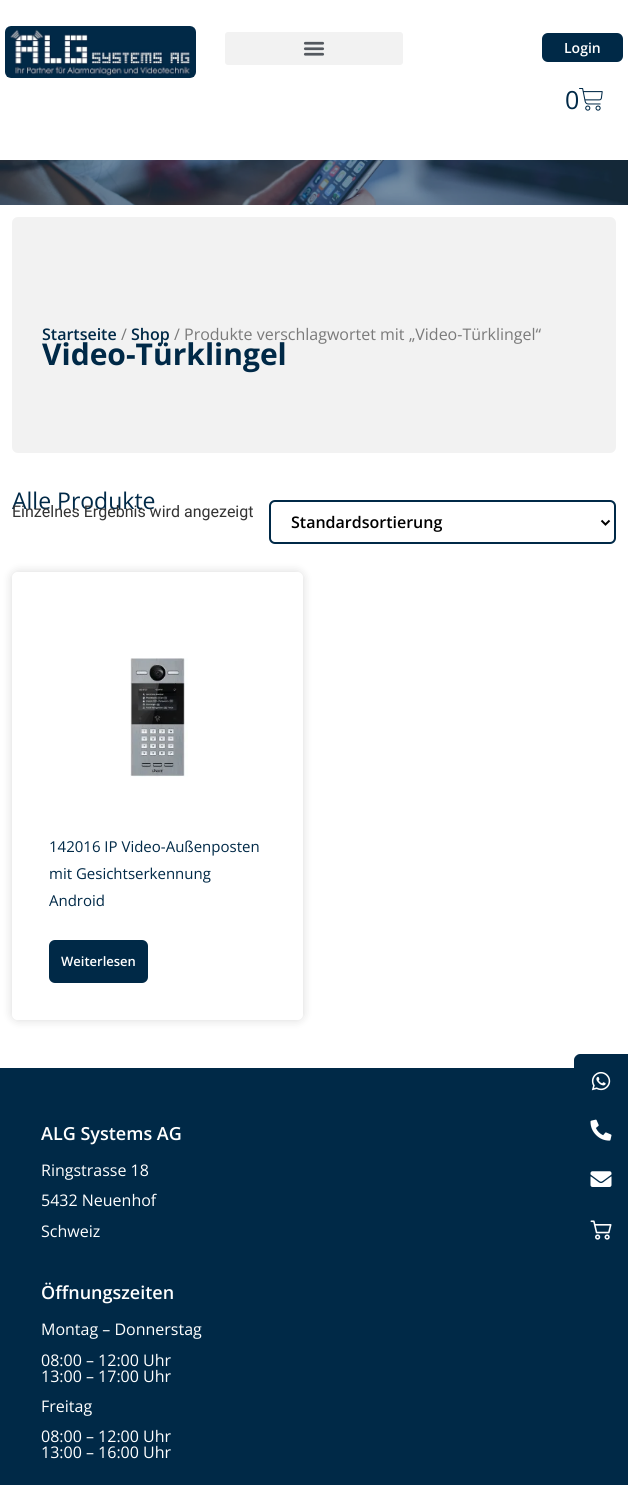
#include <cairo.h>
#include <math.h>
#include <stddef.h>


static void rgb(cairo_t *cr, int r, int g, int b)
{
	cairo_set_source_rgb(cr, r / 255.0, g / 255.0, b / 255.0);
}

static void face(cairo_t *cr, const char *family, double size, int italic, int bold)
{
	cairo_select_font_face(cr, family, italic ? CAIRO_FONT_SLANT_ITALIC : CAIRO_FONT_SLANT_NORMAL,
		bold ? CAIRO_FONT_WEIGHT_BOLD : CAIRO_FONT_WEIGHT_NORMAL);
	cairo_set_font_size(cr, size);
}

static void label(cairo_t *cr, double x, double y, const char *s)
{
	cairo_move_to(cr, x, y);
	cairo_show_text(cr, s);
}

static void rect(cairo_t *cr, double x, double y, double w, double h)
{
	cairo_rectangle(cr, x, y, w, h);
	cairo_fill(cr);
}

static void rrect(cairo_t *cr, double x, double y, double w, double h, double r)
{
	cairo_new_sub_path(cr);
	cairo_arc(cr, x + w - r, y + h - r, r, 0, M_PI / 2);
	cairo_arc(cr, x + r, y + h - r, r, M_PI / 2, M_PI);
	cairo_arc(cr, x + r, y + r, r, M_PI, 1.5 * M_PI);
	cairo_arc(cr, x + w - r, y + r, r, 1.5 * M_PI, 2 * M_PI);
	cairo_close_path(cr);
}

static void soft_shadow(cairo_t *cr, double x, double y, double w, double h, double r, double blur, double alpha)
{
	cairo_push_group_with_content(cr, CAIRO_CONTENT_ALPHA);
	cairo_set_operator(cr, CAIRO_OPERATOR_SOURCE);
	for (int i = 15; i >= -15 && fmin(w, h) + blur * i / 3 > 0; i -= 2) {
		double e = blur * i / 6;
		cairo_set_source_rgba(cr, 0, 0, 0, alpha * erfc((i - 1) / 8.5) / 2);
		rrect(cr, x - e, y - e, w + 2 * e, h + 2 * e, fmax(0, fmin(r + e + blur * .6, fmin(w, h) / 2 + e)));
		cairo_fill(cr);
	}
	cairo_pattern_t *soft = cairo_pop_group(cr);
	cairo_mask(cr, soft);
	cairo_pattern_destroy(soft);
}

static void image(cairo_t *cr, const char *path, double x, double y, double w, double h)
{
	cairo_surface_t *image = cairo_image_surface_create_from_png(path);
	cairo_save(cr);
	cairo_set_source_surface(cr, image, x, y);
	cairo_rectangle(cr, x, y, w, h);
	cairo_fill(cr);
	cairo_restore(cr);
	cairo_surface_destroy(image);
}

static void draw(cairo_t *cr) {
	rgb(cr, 255, 255, 255);
	cairo_paint(cr);
	image(cr, "image0.png", 5, 26, 191, 52);
	rgb(cr, 242, 242, 242);
	rrect(cr, 225, 32, 178, 33, 3);
	cairo_fill(cr);
	image(cr, "image1.png", 303, 41, 22, 15);
	rgb(cr, 0, 41, 71);
	rrect(cr, 543, 34, 79, 27, 5);
	cairo_fill_preserve(cr);
	cairo_stroke(cr);
	face(cr, "Open Sans SemiBold", 14, 0, 0);
	rgb(cr, 255, 255, 255);
	label(cr, 564, 53, "Login");
	face(cr, "Open Sans", 25, 0, 0);
	rgb(cr, 0, 41, 71);
	label(cr, 565, 109, "0");
	image(cr, "image2.png", 579, 88, 24, 23);
	image(cr, "image3.png", 0, 160, 628, 45);
	rgb(cr, 242, 242, 242);
	rrect(cr, 12, 217, 604, 236, 6);
	cairo_fill(cr);
	face(cr, "Open Sans SemiBold", 16, 0, 0);
	rgb(cr, 0, 41, 71);
	label(cr, 42, 340, "Startseite");
	face(cr, "Open Sans", 16, 0, 0);
	rgb(cr, 122, 122, 122);
	label(cr, 121, 340, "/");
	face(cr, "Open Sans SemiBold", 16, 0, 0);
	rgb(cr, 0, 41, 71);
	label(cr, 131, 340, "Shop");
	face(cr, "Open Sans", 16, 0, 0);
	rgb(cr, 122, 122, 122);
	label(cr, 174, 340, "/ Produkte verschlagwortet mit „Video-Türklingel“");
	face(cr, "Open Sans", 30, 0, 1);
	rgb(cr, 0, 41, 71);
	label(cr, 42, 365, "Video-Türklingel");
	face(cr, "Open Sans", 23, 0, 0);
	label(cr, 12, 509, "Alle Produkte");
	face(cr, "Roboto", 16, 0, 0);
	rgb(cr, 51, 51, 51);
	label(cr, 12, 517, "Einzelnes Ergebnis wird angezeigt");
	rrect(cr, 270, 501, 345, 42, 5);
	rgb(cr, 0, 41, 71);
	cairo_stroke(cr);
	cairo_new_path(cr);
	cairo_move_to(cr, 601.5, 520.5);
	cairo_line_to(cr, 605.5, 524.5);
	cairo_line_to(cr, 609.5, 520.5);
	rgb(cr, 0, 0, 0);
	cairo_stroke(cr);
	face(cr, "Open Sans SemiBold", 16, 0, 0);
	label(cr, 291, 528, "Standardsortierung");
	cairo_save(cr);
	cairo_set_fill_rule(cr, CAIRO_FILL_RULE_EVEN_ODD);
	cairo_new_path(cr);
	cairo_move_to(cr, 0, 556);
	cairo_line_to(cr, 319, 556);
	cairo_line_to(cr, 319, 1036);
	cairo_line_to(cr, 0, 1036);
	cairo_close_path(cr);
	cairo_move_to(cr, 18, 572);
	cairo_line_to(cr, 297, 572);
	cairo_curve_to(cr, 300.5, 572, 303, 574.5, 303, 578);
	cairo_line_to(cr, 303, 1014);
	cairo_curve_to(cr, 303, 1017.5, 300.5, 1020, 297, 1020);
	cairo_line_to(cr, 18, 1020);
	cairo_curve_to(cr, 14.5, 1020, 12, 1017.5, 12, 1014);
	cairo_line_to(cr, 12, 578);
	cairo_curve_to(cr, 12, 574.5, 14.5, 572, 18, 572);
	cairo_close_path(cr);
	cairo_clip(cr);
	rgb(cr, 0, 0, 0);
	soft_shadow(cr, 12, 572, 291, 448, 6, 5, 0.15);
	cairo_restore(cr);
	image(cr, "image4.png", 130, 658, 58, 119);
	face(cr, "Open Sans", 15, 0, 0);
	rgb(cr, 0, 41, 71);
	label(cr, 49, 852, "142016 IP Video-Außenposten");
	label(cr, 49, 879, "mit Gesichtserkennung");
	label(cr, 49, 906, "Android");
	rrect(cr, 50, 941, 97, 41, 5);
	cairo_fill_preserve(cr);
	cairo_stroke(cr);
	face(cr, "Open Sans SemiBold", 13, 0, 0);
	rgb(cr, 255, 255, 255);
	label(cr, 61, 966, "Weiterlesen");
	rgb(cr, 0, 41, 71);
	rect(cr, 0, 1068, 628, 417);
	cairo_new_path(cr);
	cairo_move_to(cr, 580, 1056);
	cairo_line_to(cr, 626, 1056);
	cairo_line_to(cr, 626, 1254);
	cairo_line_to(cr, 580, 1254);
	cairo_curve_to(cr, 578, 1254, 576, 1252, 576, 1250);
	cairo_line_to(cr, 576, 1060);
	cairo_curve_to(cr, 576, 1058, 578, 1056, 580, 1056);
	cairo_close_path(cr);
	cairo_fill_preserve(cr);
	cairo_set_line_width(cr, 4);
	cairo_stroke(cr);
	image(cr, "image5.png", 591, 1071, 20, 20);
	image(cr, "image6.png", 590, 1119, 22, 22);
	image(cr, "image7.png", 590, 1171, 22, 16);
	image(cr, "image8.png", 590, 1220, 22, 20);
	face(cr, "Open Sans SemiBold", 18, 0, 0);
	rgb(cr, 255, 255, 255);
	label(cr, 41, 1140, "ALG Systems AG");
	face(cr, "Open Sans", 16, 0, 0);
	label(cr, 41, 1176, "Ringstrasse 18");
	label(cr, 41, 1206, "5432 Neuenhof");
	label(cr, 41, 1237, "Schweiz");
	face(cr, "Open Sans SemiBold", 18, 0, 0);
	label(cr, 41, 1299, "Öffnungszeiten");
	face(cr, "Open Sans", 16, 0, 0);
	label(cr, 41, 1335, "Montag – Donnerstag");
	label(cr, 41, 1366, "08:00 – 12:00 Uhr");
	label(cr, 41, 1382, "13:00 – 17:00 Uhr");
	label(cr, 41, 1412, "Freitag");
	label(cr, 41, 1442, "08:00 – 12:00 Uhr");
	label(cr, 41, 1458, "13:00 – 16:00 Uhr");
}

int main(void) {
	cairo_surface_t *surface = cairo_image_surface_create(CAIRO_FORMAT_RGB24, 628, 1485);
	cairo_t *cr = cairo_create(surface);
	cairo_font_options_t *options = cairo_font_options_create();
	cairo_font_options_set_hint_metrics(options, CAIRO_HINT_METRICS_OFF);
	cairo_font_options_set_hint_style(options, CAIRO_HINT_STYLE_NONE);
	cairo_set_font_options(cr, options);
	cairo_set_miter_limit(cr, 4);
	draw(cr);
	cairo_surface_write_to_png(surface, "render.png");
	cairo_font_options_destroy(options);
	cairo_destroy(cr);
	cairo_surface_destroy(surface);
	return 0;
}
